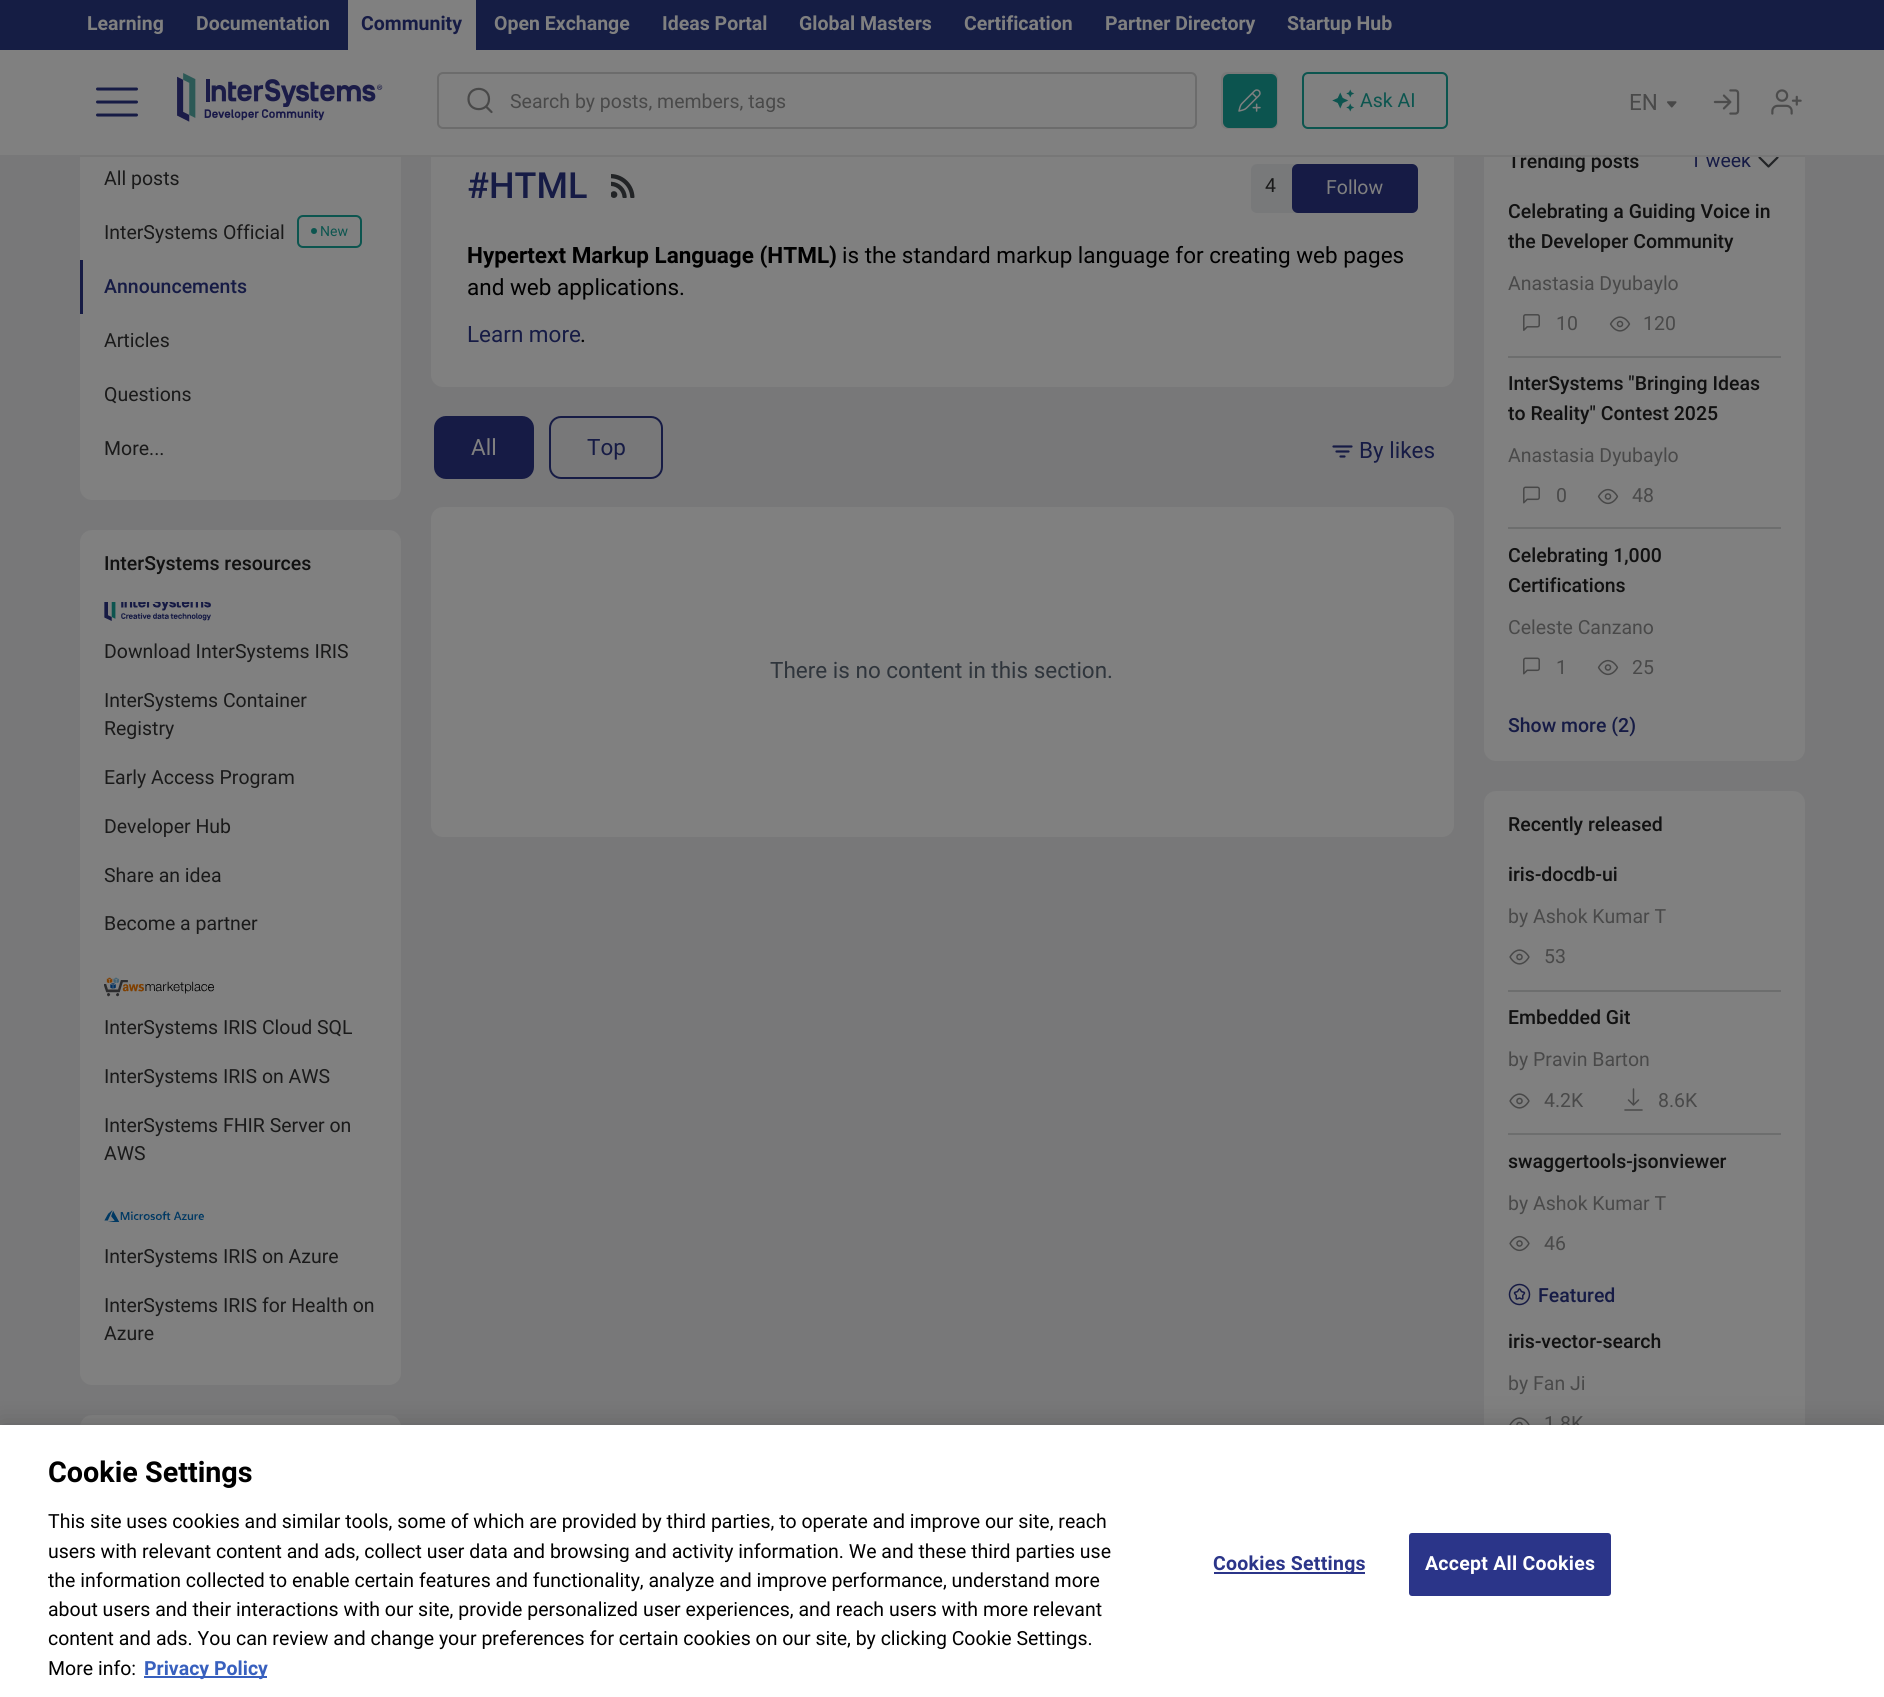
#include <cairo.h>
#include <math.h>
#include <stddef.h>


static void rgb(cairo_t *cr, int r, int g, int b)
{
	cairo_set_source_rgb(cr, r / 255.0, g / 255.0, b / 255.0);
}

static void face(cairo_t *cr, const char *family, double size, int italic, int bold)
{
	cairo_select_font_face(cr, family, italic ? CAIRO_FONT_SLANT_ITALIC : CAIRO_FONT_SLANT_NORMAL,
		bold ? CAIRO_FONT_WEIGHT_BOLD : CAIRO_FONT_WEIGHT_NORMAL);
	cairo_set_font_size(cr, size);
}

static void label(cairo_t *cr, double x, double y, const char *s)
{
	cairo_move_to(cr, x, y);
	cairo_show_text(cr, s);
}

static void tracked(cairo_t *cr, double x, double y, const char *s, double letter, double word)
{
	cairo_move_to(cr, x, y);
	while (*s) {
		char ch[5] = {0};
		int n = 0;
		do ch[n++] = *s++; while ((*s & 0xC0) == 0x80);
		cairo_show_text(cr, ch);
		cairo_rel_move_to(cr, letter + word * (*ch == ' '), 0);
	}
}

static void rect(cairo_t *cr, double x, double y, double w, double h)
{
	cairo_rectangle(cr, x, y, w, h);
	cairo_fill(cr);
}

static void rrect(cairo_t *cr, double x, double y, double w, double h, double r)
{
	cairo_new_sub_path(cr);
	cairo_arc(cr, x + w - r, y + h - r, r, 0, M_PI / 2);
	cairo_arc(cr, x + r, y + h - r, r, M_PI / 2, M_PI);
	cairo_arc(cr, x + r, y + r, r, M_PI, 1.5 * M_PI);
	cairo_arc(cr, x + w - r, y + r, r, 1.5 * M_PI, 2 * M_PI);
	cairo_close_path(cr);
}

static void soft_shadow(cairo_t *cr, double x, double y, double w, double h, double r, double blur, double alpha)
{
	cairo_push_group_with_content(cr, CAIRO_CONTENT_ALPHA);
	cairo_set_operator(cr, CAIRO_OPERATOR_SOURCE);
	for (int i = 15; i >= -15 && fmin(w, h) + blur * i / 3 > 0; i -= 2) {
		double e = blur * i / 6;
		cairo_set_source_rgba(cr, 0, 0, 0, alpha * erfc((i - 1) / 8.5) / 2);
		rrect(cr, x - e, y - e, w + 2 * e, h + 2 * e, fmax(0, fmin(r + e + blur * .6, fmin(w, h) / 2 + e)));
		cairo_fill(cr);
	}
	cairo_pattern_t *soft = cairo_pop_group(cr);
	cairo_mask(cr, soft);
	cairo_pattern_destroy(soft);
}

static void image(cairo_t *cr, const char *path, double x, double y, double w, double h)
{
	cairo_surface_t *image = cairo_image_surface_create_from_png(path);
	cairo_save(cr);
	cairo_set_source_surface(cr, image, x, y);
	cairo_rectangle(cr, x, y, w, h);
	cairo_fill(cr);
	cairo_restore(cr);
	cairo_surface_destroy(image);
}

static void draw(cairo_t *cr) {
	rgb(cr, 120, 120, 121);
	cairo_paint(cr);
	rgb(cr, 128, 128, 128);
	rrect(cr, 80, 128, 321, 372, 12);
	cairo_fill(cr);
	rrect(cr, 431, 128, 1023, 259, 12);
	cairo_fill(cr);
	rrect(cr, 1484, 128, 321, 633, 12);
	cairo_fill(cr);
	face(cr, "Roboto Medium", 19.5, 0, 0);
	rgb(cr, 17, 17, 17);
	label(cr, 1508, 168, "Trending posts");
	face(cr, "Roboto", 19.5, 0, 0);
	rgb(cr, 22, 27, 69);
	label(cr, 1690, 167, "1 week");
	rgb(cr, 128, 128, 128);
	rect(cr, 0, 50, 1884, 105);
	cairo_new_path(cr);
	cairo_move_to(cr, 1777.5, 157.5);
	cairo_line_to(cr, 1768.5, 166.5);
	cairo_line_to(cr, 1759.5, 157.5);
	rgb(cr, 34, 36, 38);
	cairo_set_line_width(cr, 2.2);
	cairo_set_line_cap(cr, CAIRO_LINE_CAP_ROUND);
	cairo_set_line_join(cr, CAIRO_LINE_JOIN_ROUND);
	cairo_stroke(cr);
	rgb(cr, 119, 119, 119);
	rect(cr, 80, 155, 1725, 2);
	rgb(cr, 21, 29, 68);
	rect(cr, 0, 0, 1884, 50);
	face(cr, "Roboto", 19.5, 0, 1);
	rgb(cr, 128, 128, 128);
	label(cr, 87, 30, "Learning");
	label(cr, 196, 30, "Documentation");
	rect(cr, 348, 0, 128, 50);
	rgb(cr, 22, 27, 69);
	label(cr, 361, 30, "Community");
	rgb(cr, 128, 128, 128);
	label(cr, 494, 30, "Open Exchange");
	label(cr, 662, 30, "Ideas Portal");
	label(cr, 799, 30, "Global Masters");
	label(cr, 964, 30, "Certification");
	label(cr, 1105, 30, "Partner Directory");
	label(cr, 1287, 30, "Startup Hub");
	cairo_new_path(cr);
	cairo_move_to(cr, 97.5, 102);
	cairo_line_to(cr, 136.5, 102);
	cairo_move_to(cr, 97.5, 89);
	cairo_line_to(cr, 136.5, 89);
	cairo_move_to(cr, 97.5, 115);
	cairo_line_to(cr, 136.5, 115);
	rgb(cr, 22, 27, 69);
	cairo_set_line_width(cr, 3);
	cairo_stroke(cr);
	image(cr, "image0.png", 177, 73, 206, 49);
	cairo_new_path(cr);
	cairo_move_to(cr, 491.5, 112);
	cairo_line_to(cr, 486, 106.5);
	cairo_move_to(cr, 489, 99);
	cairo_curve_to(cr, 489, 112.5, 468.5, 112.5, 468.5, 99);
	cairo_curve_to(cr, 468.5, 85.5, 489, 85.5, 489, 99);
	cairo_close_path(cr);
	rgb(cr, 73, 73, 73);
	cairo_set_line_width(cr, 2.2);
	cairo_stroke(cr);
	rrect(cr, 438, 73, 758, 55, 5);
	rgb(cr, 108, 108, 108);
	cairo_set_line_width(cr, 2);
	cairo_set_line_cap(cr, CAIRO_LINE_CAP_BUTT);
	cairo_set_line_join(cr, CAIRO_LINE_JOIN_MITER);
	cairo_stroke(cr);
	face(cr, "Roboto", 19.5, 0, 0);
	rgb(cr, 73, 73, 73);
	label(cr, 510, 108, "Search by posts, members, tags");
	rgb(cr, 120, 120, 120);
	rrect(cr, 1221, 72, 57, 57, 6);
	cairo_fill(cr);
	image(cr, "image1.png", 1223, 74, 54, 54);
	image(cr, "image2.png", 1332, 89, 23, 23);
	rrect(cr, 1303, 73, 144, 55, 5);
	rgb(cr, 12, 85, 79);
	cairo_stroke(cr);
	label(cr, 1360, 107, "Ask AI");
	face(cr, "Roboto", 22.5, 0, 0);
	rgb(cr, 73, 73, 73);
	label(cr, 1629, 110, "EN");
	image(cr, "image3.png", 1667, 101, 10, 7);
	image(cr, "image4.png", 1713, 89, 27, 26);
	image(cr, "image5.png", 1771, 89, 31, 26);
	face(cr, "Roboto", 19.5, 0, 0);
	rgb(cr, 26, 26, 26);
	label(cr, 104, 185, "All posts");
	label(cr, 104, 239, "InterSystems Official");
	rrect(cr, 298, 216, 63, 31, 5);
	rgb(cr, 12, 85, 79);
	cairo_stroke(cr);
	cairo_arc(cr, 314, 231, 3, 0, 2 * M_PI);
	cairo_fill(cr);
	face(cr, "Roboto", 14, 0, 0);
	label(cr, 320, 236, "New");
	rgb(cr, 22, 27, 69);
	rect(cr, 80, 260, 3, 54);
	face(cr, "Roboto Medium", 19.5, 0, 0);
	label(cr, 104, 293, "Announcements");
	face(cr, "Roboto", 19.5, 0, 0);
	rgb(cr, 26, 26, 26);
	label(cr, 104, 347, "Articles");
	label(cr, 104, 401, "Questions");
	label(cr, 104, 455, "More...");
	rgb(cr, 128, 128, 128);
	rrect(cr, 80, 530, 321, 855, 12);
	cairo_fill(cr);
	face(cr, "Roboto Medium", 19.5, 0, 0);
	rgb(cr, 17, 17, 17);
	label(cr, 104, 570, "InterSystems resources");
	image(cr, "image6.png", 104, 602, 107, 19);
	face(cr, "Roboto", 19.5, 0, 0);
	rgb(cr, 26, 26, 26);
	label(cr, 104, 658, "Download InterSystems IRIS");
	label(cr, 104, 707, "InterSystems Container");
	label(cr, 104, 735, "Registry");
	label(cr, 104, 784, "Early Access Program");
	label(cr, 104, 833, "Developer Hub");
	label(cr, 104, 882, "Share an idea");
	label(cr, 104, 930, "Become a partner");
	image(cr, "image7.png", 104, 977, 110, 20);
	label(cr, 104, 1034, "InterSystems IRIS Cloud SQL");
	label(cr, 104, 1083, "InterSystems IRIS on AWS");
	label(cr, 104, 1132, "InterSystems FHIR Server on");
	label(cr, 104, 1160, "AWS");
	image(cr, "image8.png", 104, 1210, 100, 12);
	label(cr, 104, 1263, "InterSystems IRIS on Azure");
	label(cr, 104, 1312, "InterSystems IRIS for Health on");
	label(cr, 104, 1340, "Azure");
	rgb(cr, 128, 128, 128);
	rrect(cr, 80, 1415, 321, 184, 12);
	cairo_fill(cr);
	face(cr, "Roboto Medium", 36, 0, 0);
	rgb(cr, 22, 27, 69);
	label(cr, 467, 198, "#HTML");
	image(cr, "image9.png", 611, 174, 24, 24);
	rgb(cr, 120, 121, 122);
	rrect(cr, 1251, 164, 167, 49, 6);
	cairo_fill(cr);
	face(cr, "Roboto", 19.5, 0, 0);
	rgb(cr, 26, 26, 26);
	label(cr, 1265, 192, "4");
	rgb(cr, 22, 27, 69);
	rrect(cr, 1293, 165, 124, 47, 5);
	cairo_fill_preserve(cr);
	cairo_stroke(cr);
	rgb(cr, 128, 128, 128);
	label(cr, 1326, 194, "Follow");
	face(cr, "Roboto", 22.5, 0, 1);
	rgb(cr, 0, 0, 0);
	label(cr, 467, 263, "Hypertext Markup Language (HTML)");
	face(cr, "Roboto", 22.5, 0, 0);
	label(cr, 842, 263, "is the standard markup language for creating web pages");
	label(cr, 467, 295, "and web applications.");
	rgb(cr, 22, 27, 69);
	label(cr, 467, 342, "Learn more");
	rgb(cr, 0, 0, 0);
	label(cr, 580, 342, ".");
	rgb(cr, 22, 27, 69);
	rrect(cr, 435, 417, 98, 61, 11);
	cairo_fill_preserve(cr);
	cairo_stroke(cr);
	rgb(cr, 128, 128, 128);
	label(cr, 471, 455, "All");
	rrect(cr, 550, 417, 112, 61, 11);
	rgb(cr, 22, 27, 69);
	cairo_stroke(cr);
	label(cr, 587, 455, "Top");
	cairo_new_path(cr);
	cairo_move_to(cr, 1333.5, 446.5);
	cairo_line_to(cr, 1351.5, 446.5);
	cairo_move_to(cr, 1336.5, 451.5);
	cairo_line_to(cr, 1348.5, 451.5);
	cairo_move_to(cr, 1340.5, 456.5);
	cairo_line_to(cr, 1344.5, 456.5);
	cairo_set_line_width(cr, 2.2);
	cairo_set_line_cap(cr, CAIRO_LINE_CAP_ROUND);
	cairo_stroke(cr);
	label(cr, 1359, 458, "By likes");
	rgb(cr, 128, 128, 128);
	rrect(cr, 431, 507, 1023, 330, 12);
	cairo_fill(cr);
	rgb(cr, 47, 53, 60);
	label(cr, 770, 678, "There is no content in this section.");
	face(cr, "Roboto Medium", 19.5, 0, 0);
	rgb(cr, 17, 17, 17);
	label(cr, 1508, 218, "Celebrating a Guiding Voice in");
	cairo_save(cr);
	cairo_rectangle(cr, 1508, 197, 273, 60);
	cairo_clip(cr);
	label(cr, 1508, 248, "the Developer Community");
	cairo_restore(cr);
	face(cr, "Roboto", 19.5, 0, 0);
	rgb(cr, 73, 73, 73);
	label(cr, 1508, 290, "Anastasia Dyubaylo");
	image(cr, "image10.png", 1523, 314, 17, 17);
	label(cr, 1556, 330, "10");
	image(cr, "image11.png", 1609, 316, 22, 16);
	label(cr, 1643, 330, "120");
	rgb(cr, 109, 110, 110);
	rect(cr, 1508, 356, 273, 2);
	face(cr, "Roboto Medium", 19.5, 0, 0);
	rgb(cr, 17, 17, 17);
	label(cr, 1508, 390, "InterSystems \"Bringing Ideas");
	cairo_save(cr);
	cairo_rectangle(cr, 1508, 369, 273, 60);
	cairo_clip(cr);
	label(cr, 1508, 420, "to Reality\" Contest 2025");
	cairo_restore(cr);
	face(cr, "Roboto", 19.5, 0, 0);
	rgb(cr, 73, 73, 73);
	label(cr, 1508, 462, "Anastasia Dyubaylo");
	image(cr, "image12.png", 1523, 486, 17, 18);
	label(cr, 1556, 502, "0");
	image(cr, "image13.png", 1597, 488, 22, 17);
	label(cr, 1632, 502, "48");
	rgb(cr, 109, 110, 110);
	rect(cr, 1508, 527, 273, 2);
	face(cr, "Roboto Medium", 19.5, 0, 0);
	rgb(cr, 17, 17, 17);
	label(cr, 1508, 562, "Celebrating 1,000");
	label(cr, 1508, 592, "Certifications");
	face(cr, "Roboto", 19.5, 0, 0);
	rgb(cr, 73, 73, 73);
	label(cr, 1508, 634, "Celeste Canzano");
	image(cr, "image12.png", 1523, 657, 17, 18);
	label(cr, 1556, 674, "1");
	image(cr, "image13.png", 1597, 659, 22, 17);
	label(cr, 1632, 674, "25");
	face(cr, "Roboto Medium", 19.5, 0, 0);
	rgb(cr, 22, 27, 69);
	label(cr, 1508, 732, "Show more (2)");
	rgb(cr, 128, 128, 128);
	rrect(cr, 1484, 791, 321, 678, 12);
	cairo_fill(cr);
	rgb(cr, 17, 17, 17);
	label(cr, 1508, 831, "Recently released");
	label(cr, 1508, 881, "iris-docdb-ui");
	face(cr, "Roboto", 19.5, 0, 0);
	rgb(cr, 73, 73, 73);
	label(cr, 1508, 923, "by Ashok Kumar T");
	image(cr, "image14.png", 1509, 949, 21, 16);
	label(cr, 1544, 963, "53");
	rgb(cr, 109, 110, 110);
	rect(cr, 1508, 990, 273, 2);
	face(cr, "Roboto Medium", 19.5, 0, 0);
	rgb(cr, 17, 17, 17);
	label(cr, 1508, 1024, "Embedded Git");
	face(cr, "Roboto", 19.5, 0, 0);
	rgb(cr, 73, 73, 73);
	label(cr, 1508, 1066, "by Pravin Barton");
	image(cr, "image14.png", 1509, 1093, 21, 16);
	label(cr, 1544, 1107, "4.2K");
	cairo_new_path(cr);
	cairo_move_to(cr, 1625, 1110);
	cairo_line_to(cr, 1642, 1110);
	cairo_move_to(cr, 1633.5, 1089);
	cairo_line_to(cr, 1633.5, 1105);
	cairo_move_to(cr, 1633.5, 1105);
	cairo_line_to(cr, 1638.5, 1100);
	cairo_move_to(cr, 1633.5, 1105);
	cairo_line_to(cr, 1628.5, 1100);
	cairo_set_line_width(cr, 1.5);
	cairo_set_line_join(cr, CAIRO_LINE_JOIN_ROUND);
	cairo_stroke(cr);
	label(cr, 1658, 1107, "8.6K");
	rgb(cr, 109, 110, 110);
	rect(cr, 1508, 1133, 273, 2);
	face(cr, "Roboto Medium", 19.5, 0, 0);
	rgb(cr, 17, 17, 17);
	label(cr, 1508, 1168, "swaggertools-jsonviewer");
	face(cr, "Roboto", 19.5, 0, 0);
	rgb(cr, 73, 73, 73);
	label(cr, 1508, 1210, "by Ashok Kumar T");
	image(cr, "image15.png", 1509, 1235, 21, 17);
	label(cr, 1544, 1250, "46");
	image(cr, "image16.png", 1508, 1283, 23, 23);
	face(cr, "Roboto Medium", 19.5, 0, 0);
	rgb(cr, 22, 27, 69);
	label(cr, 1538, 1302, "Featured");
	rgb(cr, 17, 17, 17);
	label(cr, 1508, 1348, "iris-vector-search");
	face(cr, "Roboto", 19.5, 0, 0);
	rgb(cr, 73, 73, 73);
	label(cr, 1508, 1390, "by Fan Ji");
	image(cr, "image17.png", 1509, 1417, 21, 8);
	label(cr, 1544, 1430, "1.8K");
	rgb(cr, 0, 0, 0);
	soft_shadow(cr, 0, 1425, 1884, 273, 0, 13.5, 0.2);
	rgb(cr, 255, 255, 255);
	rect(cr, 0, 1425, 1884, 272);
	face(cr, "Roboto", 28.75, 0, 1);
	rgb(cr, 0, 0, 0);
	label(cr, 48, 1482, "Cookie Settings");
	face(cr, "Roboto", 19.5, 0, 0);
	label(cr, 48, 1528, "This site uses cookies and similar tools, some of which are provided by third parties, to operate and improve our site, reach");
	label(cr, 48, 1558, "users with relevant content and ads, collect user data and browsing and activity information. We and these third parties use");
	label(cr, 48, 1587, "the information collected to enable certain features and functionality, analyze and improve performance, understand more");
	label(cr, 48, 1616, "about users and their interactions with our site, provide personalized user experiences, and reach users with more relevant");
	label(cr, 48, 1645, "content and ads. You can review and change your preferences for certain cookies on our site, by clicking Cookie Settings.");
	label(cr, 48, 1675, "More info:");
	rgb(cr, 56, 96, 190);
	rect(cr, 144, 1676, 123, 2);
	face(cr, "Roboto", 19.5, 0, 1);
	label(cr, 144, 1675, "Privacy Policy");
	rgb(cr, 43, 53, 137);
	rect(cr, 1214, 1572, 151, 2);
	tracked(cr, 1213, 1570, "Cookies Settings", 0.25, 0);
	rrect(cr, 1410, 1534, 200, 61, 2);
	cairo_fill_preserve(cr);
	cairo_set_line_width(cr, 2);
	cairo_set_line_cap(cr, CAIRO_LINE_CAP_BUTT);
	cairo_set_line_join(cr, CAIRO_LINE_JOIN_MITER);
	cairo_stroke(cr);
	rgb(cr, 255, 255, 255);
	tracked(cr, 1425, 1570, "Accept All Cookies", 0.25, 0);
}

int main(void) {
	cairo_surface_t *surface = cairo_image_surface_create(CAIRO_FORMAT_RGB24, 1884, 1697);
	cairo_t *cr = cairo_create(surface);
	cairo_font_options_t *options = cairo_font_options_create();
	cairo_font_options_set_hint_metrics(options, CAIRO_HINT_METRICS_OFF);
	cairo_font_options_set_hint_style(options, CAIRO_HINT_STYLE_NONE);
	cairo_set_font_options(cr, options);
	cairo_set_miter_limit(cr, 4);
	draw(cr);
	cairo_surface_write_to_png(surface, "render.png");
	cairo_font_options_destroy(options);
	cairo_destroy(cr);
	cairo_surface_destroy(surface);
	return 0;
}
